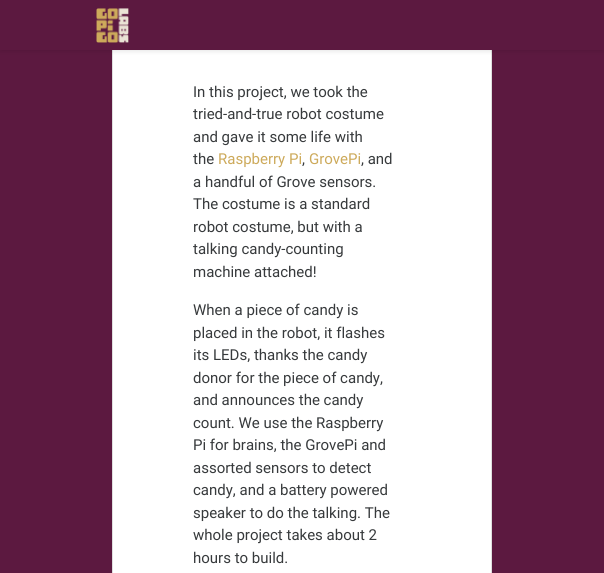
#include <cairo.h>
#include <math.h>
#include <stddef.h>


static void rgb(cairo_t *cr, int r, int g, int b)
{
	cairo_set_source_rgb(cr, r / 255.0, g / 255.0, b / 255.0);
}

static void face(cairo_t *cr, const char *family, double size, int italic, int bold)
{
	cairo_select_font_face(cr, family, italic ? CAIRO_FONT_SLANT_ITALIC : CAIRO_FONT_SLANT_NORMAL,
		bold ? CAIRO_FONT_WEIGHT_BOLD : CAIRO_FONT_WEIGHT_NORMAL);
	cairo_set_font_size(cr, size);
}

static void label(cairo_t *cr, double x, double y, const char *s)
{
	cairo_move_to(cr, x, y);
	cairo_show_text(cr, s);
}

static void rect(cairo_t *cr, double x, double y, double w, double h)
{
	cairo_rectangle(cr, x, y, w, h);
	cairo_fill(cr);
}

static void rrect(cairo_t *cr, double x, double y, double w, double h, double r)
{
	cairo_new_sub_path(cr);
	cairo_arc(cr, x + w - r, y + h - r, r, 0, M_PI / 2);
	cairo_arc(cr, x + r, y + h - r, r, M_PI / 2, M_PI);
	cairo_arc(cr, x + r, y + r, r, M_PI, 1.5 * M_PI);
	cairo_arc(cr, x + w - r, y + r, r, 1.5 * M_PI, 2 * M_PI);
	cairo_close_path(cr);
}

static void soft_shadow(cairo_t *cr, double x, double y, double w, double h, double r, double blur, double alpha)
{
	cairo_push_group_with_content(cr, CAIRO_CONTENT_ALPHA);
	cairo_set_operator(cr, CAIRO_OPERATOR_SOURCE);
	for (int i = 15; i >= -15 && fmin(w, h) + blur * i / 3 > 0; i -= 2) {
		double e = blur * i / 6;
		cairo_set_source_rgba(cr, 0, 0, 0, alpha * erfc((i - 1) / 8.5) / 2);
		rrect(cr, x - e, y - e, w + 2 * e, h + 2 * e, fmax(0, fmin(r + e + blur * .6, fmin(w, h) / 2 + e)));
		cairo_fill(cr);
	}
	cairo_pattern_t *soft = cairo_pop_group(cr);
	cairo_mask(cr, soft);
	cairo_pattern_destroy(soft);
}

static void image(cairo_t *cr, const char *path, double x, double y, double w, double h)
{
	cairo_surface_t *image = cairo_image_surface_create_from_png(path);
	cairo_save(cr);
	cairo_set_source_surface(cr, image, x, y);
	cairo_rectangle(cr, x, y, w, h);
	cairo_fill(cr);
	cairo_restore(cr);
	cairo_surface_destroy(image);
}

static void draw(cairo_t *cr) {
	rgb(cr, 92, 25, 64);
	cairo_paint(cr);
	rgb(cr, 255, 255, 255);
	rect(cr, 113, 50, 378, 523);
	cairo_rectangle(cr, 112.5, -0.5, 379, 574);
	rgb(cr, 223, 223, 223);
	cairo_set_line_width(cr, 1);
	cairo_stroke(cr);
	rgb(cr, 0, 0, 0);
	soft_shadow(cr, 0, 2, 604, 50, 0, 2, 0.08);
	rgb(cr, 92, 25, 64);
	rect(cr, 0, 0, 604, 50);
	image(cr, "image0.png", 96, 8, 33, 35);
	face(cr, "Roboto", 15, 0, 0);
	rgb(cr, 55, 58, 60);
	label(cr, 193, 97, "In this project, we took the");
	label(cr, 193, 119, "tried-and-true robot costume");
	label(cr, 193, 142, "and gave it some life with");
	label(cr, 193, 164, "the");
	rgb(cr, 205, 170, 91);
	label(cr, 218, 164, "Raspberry Pi");
	rgb(cr, 55, 58, 60);
	label(cr, 302, 164, ",");
	rgb(cr, 205, 170, 91);
	label(cr, 309, 164, "GrovePi");
	rgb(cr, 55, 58, 60);
	label(cr, 361, 164, ", and");
	label(cr, 193, 187, "a handful of Grove sensors.");
	label(cr, 193, 209, "The costume is a standard");
	label(cr, 193, 232, "robot costume, but with a");
	label(cr, 193, 254, "talking candy-counting");
	label(cr, 193, 277, "machine attached!");
	label(cr, 193, 315, "When a piece of candy is");
	label(cr, 193, 338, "placed in the robot, it flashes");
	label(cr, 193, 360, "its LEDs, thanks the candy");
	label(cr, 193, 383, "donor for the piece of candy,");
	label(cr, 193, 405, "and announces the candy");
	label(cr, 193, 428, "count. We use the Raspberry");
	label(cr, 193, 450, "Pi for brains, the GrovePi and");
	label(cr, 193, 473, "assorted sensors to detect");
	label(cr, 193, 495, "candy, and a battery powered");
	label(cr, 193, 518, "speaker to do the talking. The");
	label(cr, 193, 540, "whole project takes about 2");
	label(cr, 193, 563, "hours to build.");
}

int main(void) {
	cairo_surface_t *surface = cairo_image_surface_create(CAIRO_FORMAT_RGB24, 604, 573);
	cairo_t *cr = cairo_create(surface);
	cairo_font_options_t *options = cairo_font_options_create();
	cairo_font_options_set_hint_metrics(options, CAIRO_HINT_METRICS_OFF);
	cairo_font_options_set_hint_style(options, CAIRO_HINT_STYLE_NONE);
	cairo_set_font_options(cr, options);
	cairo_set_miter_limit(cr, 4);
	draw(cr);
	cairo_surface_write_to_png(surface, "render.png");
	cairo_font_options_destroy(options);
	cairo_destroy(cr);
	cairo_surface_destroy(surface);
	return 0;
}
